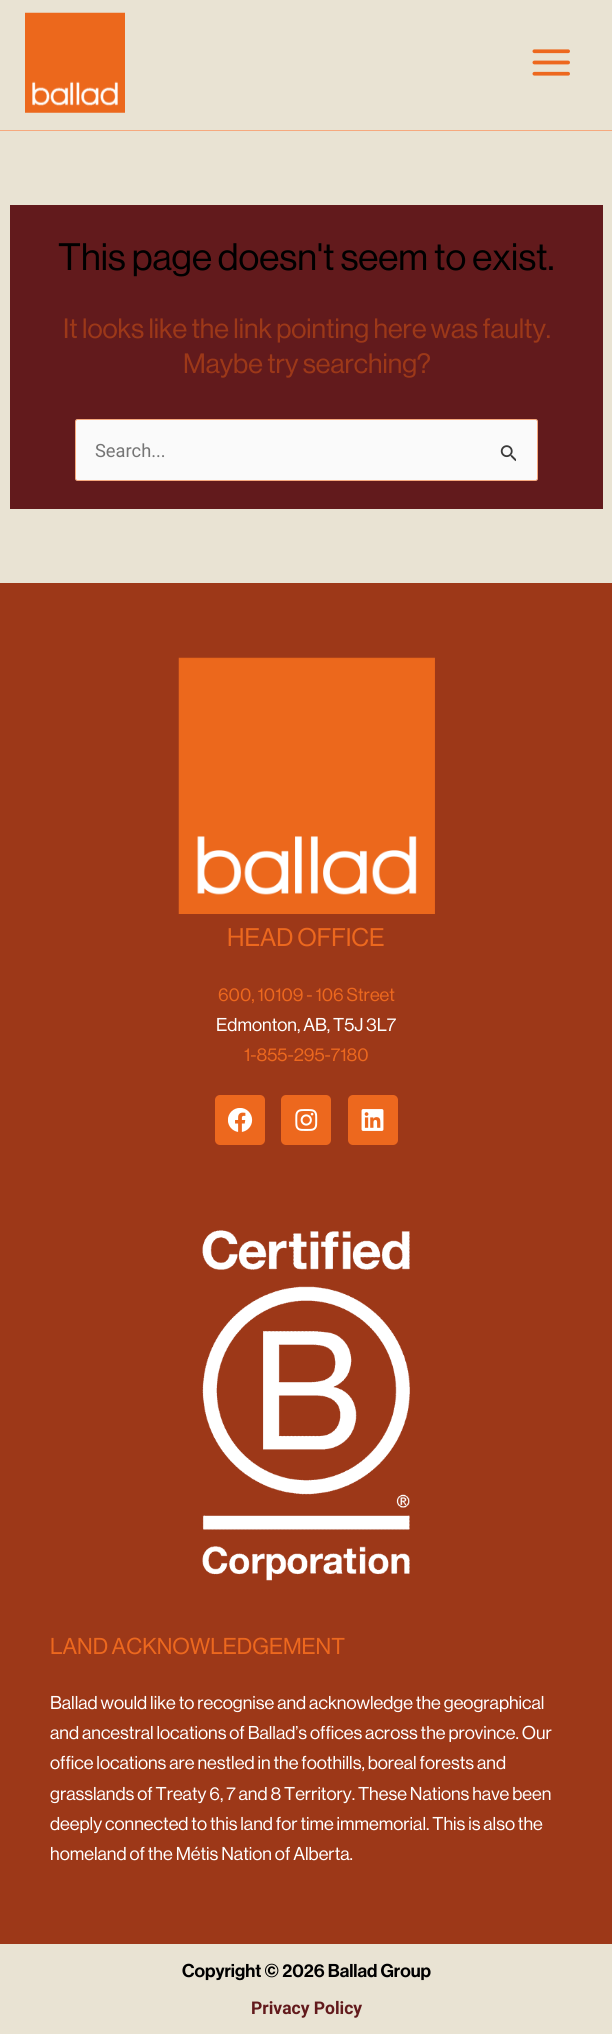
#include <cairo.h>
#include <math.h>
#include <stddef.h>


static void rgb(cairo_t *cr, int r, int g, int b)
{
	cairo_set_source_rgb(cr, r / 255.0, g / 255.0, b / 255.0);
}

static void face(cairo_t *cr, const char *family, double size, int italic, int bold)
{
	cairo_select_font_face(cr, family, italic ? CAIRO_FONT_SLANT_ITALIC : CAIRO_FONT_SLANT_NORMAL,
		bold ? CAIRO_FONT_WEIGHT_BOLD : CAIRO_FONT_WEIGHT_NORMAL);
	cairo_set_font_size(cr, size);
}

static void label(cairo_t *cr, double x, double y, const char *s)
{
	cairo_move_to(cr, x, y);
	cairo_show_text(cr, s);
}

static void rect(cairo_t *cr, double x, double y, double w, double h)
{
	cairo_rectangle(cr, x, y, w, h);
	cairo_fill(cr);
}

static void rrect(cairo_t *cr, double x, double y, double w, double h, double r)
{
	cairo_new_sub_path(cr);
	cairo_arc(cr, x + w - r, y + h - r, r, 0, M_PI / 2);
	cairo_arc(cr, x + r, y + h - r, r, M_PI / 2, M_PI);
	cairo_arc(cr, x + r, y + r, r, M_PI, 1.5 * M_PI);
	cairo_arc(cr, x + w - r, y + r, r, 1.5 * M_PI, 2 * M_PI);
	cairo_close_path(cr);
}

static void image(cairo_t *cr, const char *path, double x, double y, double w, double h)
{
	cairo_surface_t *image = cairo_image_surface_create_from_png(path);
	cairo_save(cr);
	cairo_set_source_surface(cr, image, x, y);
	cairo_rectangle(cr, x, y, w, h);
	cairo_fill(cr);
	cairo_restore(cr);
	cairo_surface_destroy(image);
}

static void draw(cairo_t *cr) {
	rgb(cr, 233, 227, 211);
	cairo_paint(cr);
	rgb(cr, 246, 169, 126);
	rect(cr, 0, 130, 612, 1);
	image(cr, "image0.png", 25, 12, 100, 101);
	image(cr, "image1.png", 532, 49, 38, 27);
	rgb(cr, 98, 26, 28);
	rect(cr, 10, 205, 593, 304);
	face(cr, "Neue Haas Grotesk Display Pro", 37.5, 0, 0);
	rgb(cr, 0, 0, 0);
	label(cr, 58, 270, "This page doesn't seem to exist.");
	face(cr, "Neue Haas Grotesk Display Pro", 27.4, 0, 0);
	rgb(cr, 157, 56, 24);
	label(cr, 63, 338, "It looks like the link pointing here was faulty.");
	label(cr, 183, 373, "Maybe try searching?");
	rgb(cr, 250, 250, 250);
	rrect(cr, 75.5, 419.5, 462, 61, 2);
	cairo_fill_preserve(cr);
	rgb(cr, 246, 169, 126);
	cairo_set_line_width(cr, 1);
	cairo_stroke(cr);
	face(cr, "Roboto", 18.25, 0, 0);
	rgb(cr, 117, 117, 117);
	label(cr, 95, 457, "Search...");
	image(cr, "image2.png", 500, 445, 16, 17);
	rgb(cr, 157, 56, 24);
	rect(cr, 0, 583, 612, 1361);
	image(cr, "image3.png", 178, 657, 257, 257);
	face(cr, "Neue Haas Grotesk Display Pro", 25, 0, 0);
	rgb(cr, 237, 104, 30);
	label(cr, 227, 946, "HEAD OFFICE");
	face(cr, "Neue Haas Grotesk Display Pro", 18.25, 0, 0);
	label(cr, 218, 1001, "600, 10109 - 106 Street");
	rgb(cr, 255, 255, 255);
	label(cr, 216, 1031, "Edmonton, AB, T5J 3L7");
	rgb(cr, 237, 104, 30);
	label(cr, 244, 1061, "1-855-295-7180");
	rrect(cr, 215, 1095, 50, 50, 5);
	cairo_fill(cr);
	image(cr, "image4.png", 228, 1108, 25, 24);
	rrect(cr, 281, 1095, 50, 50, 5);
	cairo_fill(cr);
	image(cr, "image5.png", 295, 1109, 23, 22);
	rrect(cr, 348, 1095, 50, 50, 5);
	cairo_fill(cr);
	image(cr, "image6.png", 361, 1109, 23, 22);
	image(cr, "image7.png", 202, 1230, 208, 351);
	face(cr, "Neue Haas Grotesk Display Pro", 22.5, 0, 0);
	label(cr, 50, 1654, "LAND ACKNOWLEDGEMENT");
	face(cr, "Neue Haas Grotesk Display Pro", 18.25, 0, 0);
	rgb(cr, 255, 255, 255);
	label(cr, 50, 1709, "Ballad would like to recognise and acknowledge the geographical");
	label(cr, 50, 1739, "and ancestral locations of Ballad’s offices across the province. Our");
	label(cr, 50, 1769, "office locations are nestled in the foothills, boreal forests and");
	label(cr, 50, 1800, "grasslands of Treaty 6, 7 and 8 Territory. These Nations have been");
	label(cr, 50, 1830, "deeply connected to this land for time immemorial. This is also the");
	label(cr, 50, 1860, "homeland of the Métis Nation of Alberta.");
	face(cr, "Neue Haas Grotesk Display Pro Medium", 18.25, 0, 0);
	rgb(cr, 0, 0, 0);
	label(cr, 182, 1977, "Copyright © 2026 Ballad Group");
	face(cr, "Roboto", 17.5, 0, 1);
	rgb(cr, 98, 26, 28);
	label(cr, 251, 2014, "Privacy Policy");
}

int main(void) {
	cairo_surface_t *surface = cairo_image_surface_create(CAIRO_FORMAT_RGB24, 612, 2034);
	cairo_t *cr = cairo_create(surface);
	cairo_font_options_t *options = cairo_font_options_create();
	cairo_font_options_set_hint_metrics(options, CAIRO_HINT_METRICS_OFF);
	cairo_font_options_set_hint_style(options, CAIRO_HINT_STYLE_NONE);
	cairo_set_font_options(cr, options);
	cairo_set_miter_limit(cr, 4);
	draw(cr);
	cairo_surface_write_to_png(surface, "render.png");
	cairo_font_options_destroy(options);
	cairo_destroy(cr);
	cairo_surface_destroy(surface);
	return 0;
}
